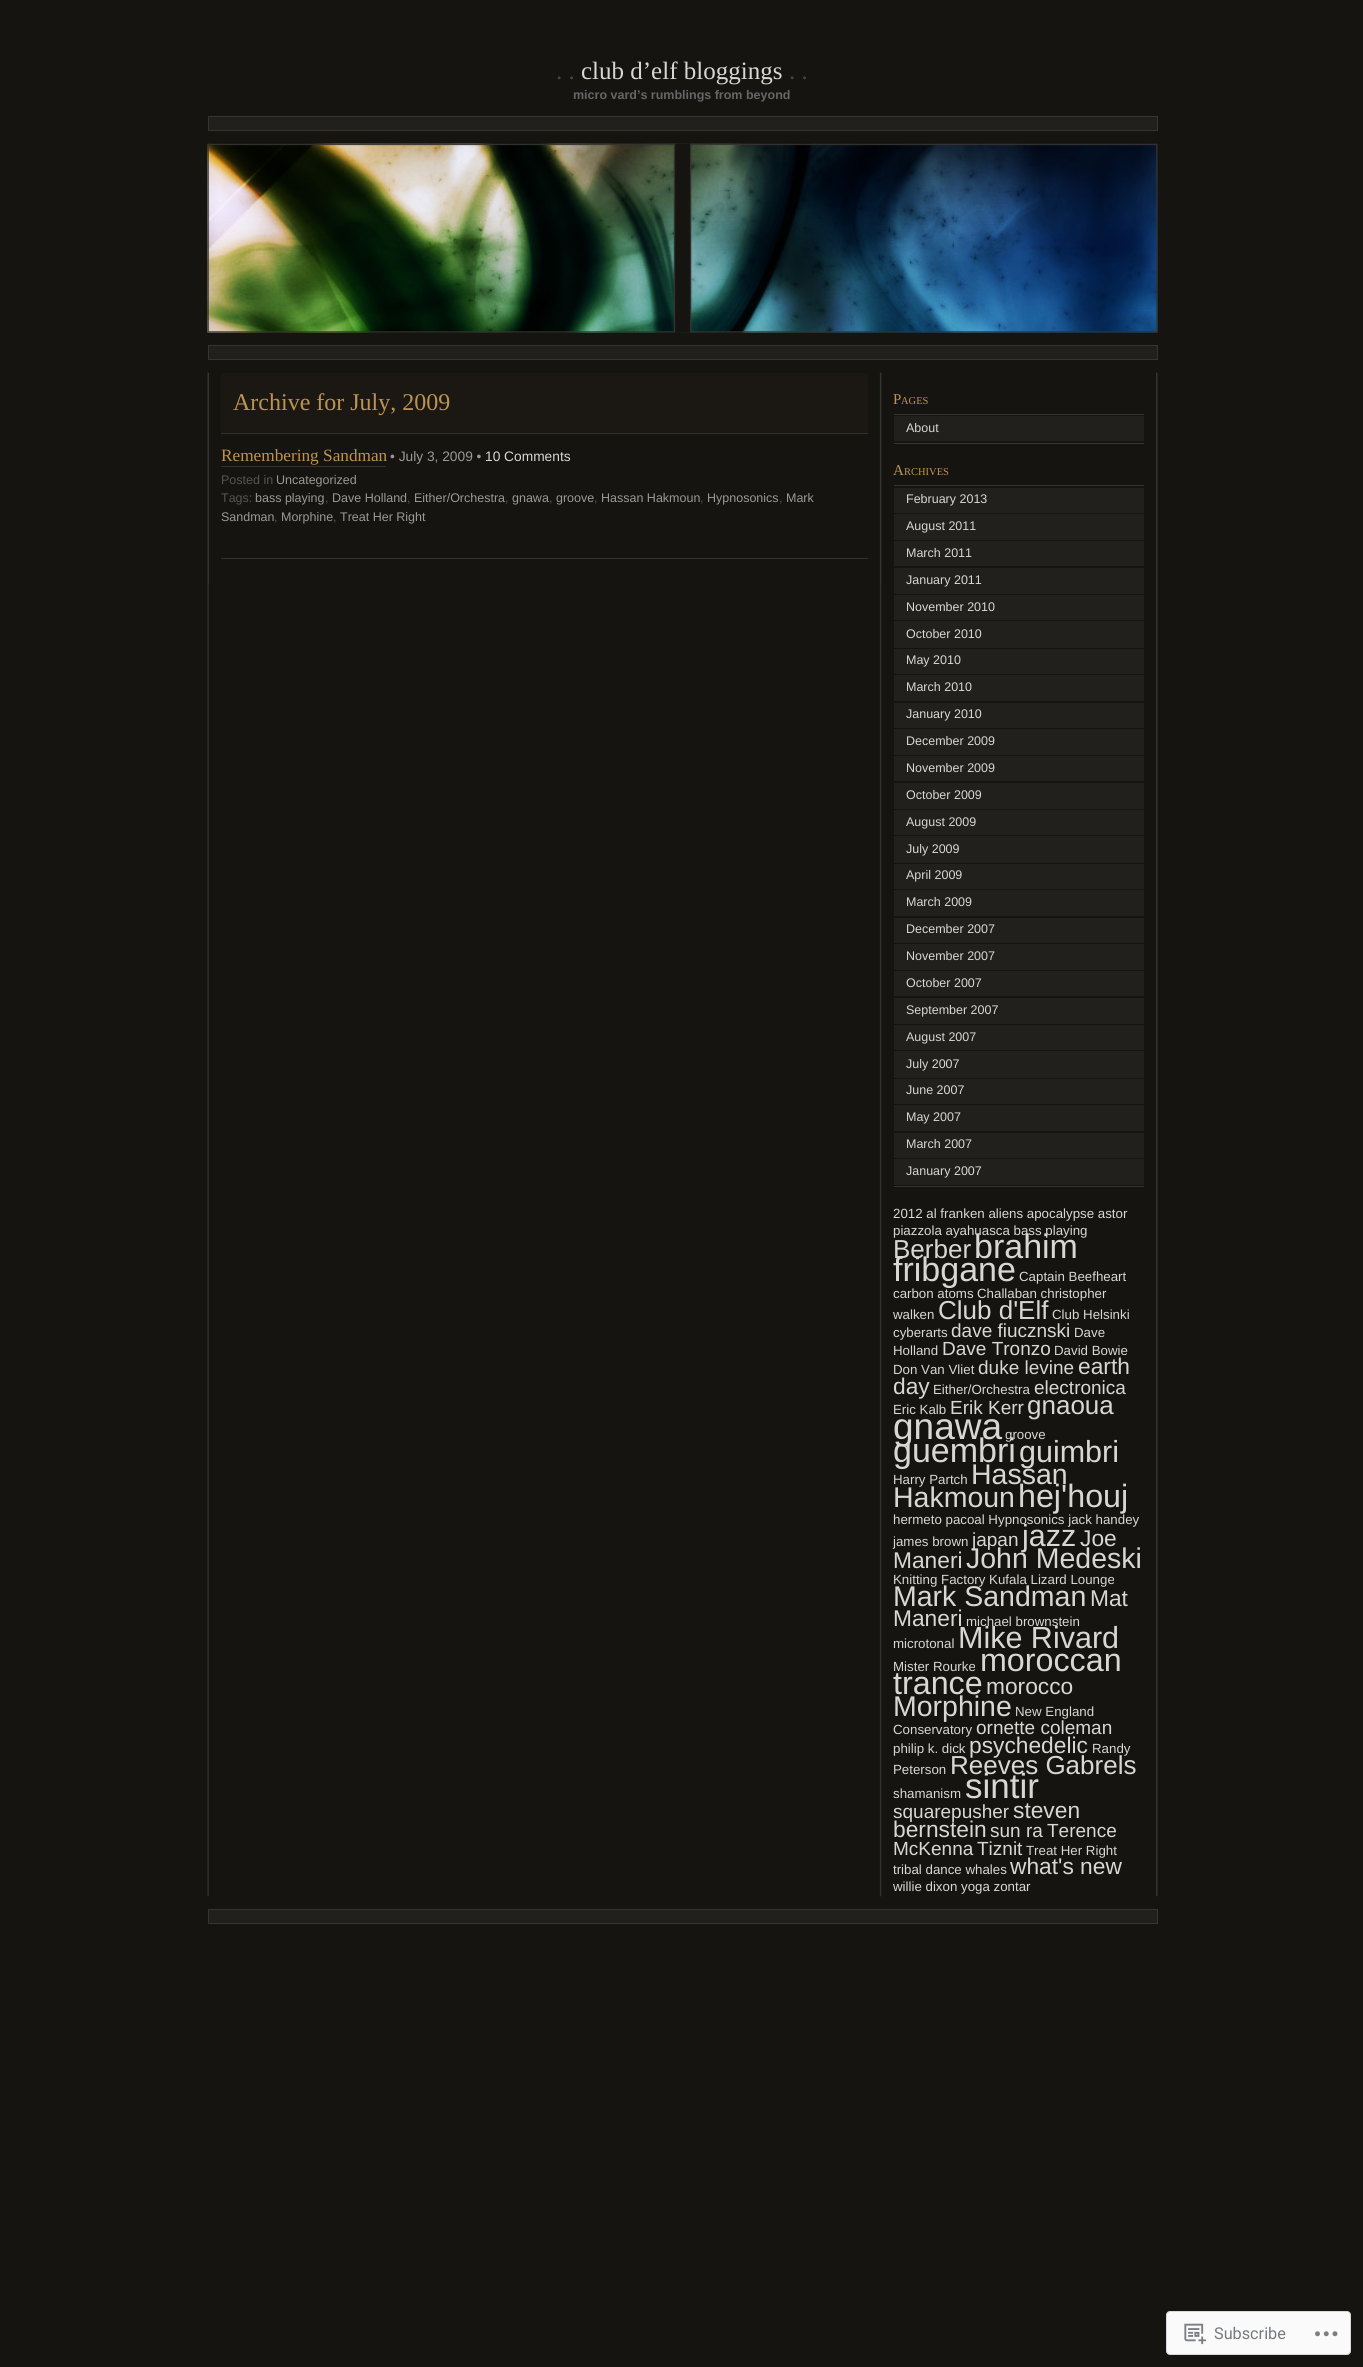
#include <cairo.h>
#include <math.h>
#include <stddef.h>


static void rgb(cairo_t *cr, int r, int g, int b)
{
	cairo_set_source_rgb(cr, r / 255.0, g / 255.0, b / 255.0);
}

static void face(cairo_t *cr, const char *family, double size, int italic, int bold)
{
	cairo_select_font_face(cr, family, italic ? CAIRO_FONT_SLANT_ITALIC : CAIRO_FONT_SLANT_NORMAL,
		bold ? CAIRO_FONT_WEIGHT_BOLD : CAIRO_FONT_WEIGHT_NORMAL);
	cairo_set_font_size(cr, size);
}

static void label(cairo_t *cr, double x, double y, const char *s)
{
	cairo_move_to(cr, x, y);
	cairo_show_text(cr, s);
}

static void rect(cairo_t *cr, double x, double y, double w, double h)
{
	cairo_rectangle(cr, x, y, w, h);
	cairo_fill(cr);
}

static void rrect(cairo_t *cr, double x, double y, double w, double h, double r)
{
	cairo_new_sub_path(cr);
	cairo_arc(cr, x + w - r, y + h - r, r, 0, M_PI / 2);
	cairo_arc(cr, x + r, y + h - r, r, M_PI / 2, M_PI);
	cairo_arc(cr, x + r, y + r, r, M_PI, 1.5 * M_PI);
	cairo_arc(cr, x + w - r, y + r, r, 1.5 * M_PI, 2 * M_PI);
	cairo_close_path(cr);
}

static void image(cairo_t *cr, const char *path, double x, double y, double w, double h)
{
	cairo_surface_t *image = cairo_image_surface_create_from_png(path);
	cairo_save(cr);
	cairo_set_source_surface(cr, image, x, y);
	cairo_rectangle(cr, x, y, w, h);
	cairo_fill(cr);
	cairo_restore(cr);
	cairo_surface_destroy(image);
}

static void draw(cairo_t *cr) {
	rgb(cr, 22, 20, 16);
	cairo_paint(cr);
	face(cr, "Liberation Serif", 25, 0, 0);
	rgb(cr, 68, 68, 68);
	label(cr, 556, 79, ". .");
	rgb(cr, 216, 215, 211);
	label(cr, 581, 79, "club d’elf bloggings");
	rgb(cr, 68, 68, 68);
	label(cr, 789, 79, ". .");
	face(cr, "Liberation Sans", 12.5, 0, 1);
	rgb(cr, 102, 102, 102);
	label(cr, 573, 99, "micro vard’s rumblings from beyond");
	rgb(cr, 34, 32, 29);
	cairo_rectangle(cr, 208.5, 116.5, 949, 14);
	cairo_fill_preserve(cr);
	rgb(cr, 54, 52, 48);
	cairo_set_line_width(cr, 1);
	cairo_stroke(cr);
	image(cr, "image0.png", 207, 143, 951, 190);
	image(cr, "image1.png", 207, 143, 951, 190);
	rgb(cr, 34, 32, 29);
	cairo_rectangle(cr, 208.5, 345.5, 949, 14);
	cairo_fill_preserve(cr);
	rgb(cr, 54, 52, 48);
	cairo_stroke(cr);
	image(cr, "image2.png", 207, 372, 951, 1525);
	rect(cr, 880, 373, 1, 211);
	rect(cr, 208, 373, 1, 211);
	rgb(cr, 27, 24, 20);
	rect(cr, 221, 373, 647, 60);
	rgb(cr, 53, 48, 42);
	rect(cr, 221, 433, 647, 1);
	face(cr, "Liberation Serif", 24, 0, 0);
	rgb(cr, 189, 147, 79);
	label(cr, 233, 410, "Archive for July, 2009");
	face(cr, "Liberation Serif", 17.25, 0, 0);
	label(cr, 221, 461, "Remembering Sandman");
	rgb(cr, 53, 48, 42);
	rect(cr, 221, 466, 165, 1);
	face(cr, "Liberation Sans", 13.75, 0, 0);
	rgb(cr, 153, 153, 153);
	label(cr, 390, 461, "• July 3, 2009 •");
	rgb(cr, 216, 215, 211);
	label(cr, 485, 461, "10 Comments");
	face(cr, "Liberation Sans", 12.5, 0, 0);
	rgb(cr, 85, 85, 85);
	label(cr, 221, 484, "Posted in");
	rgb(cr, 153, 153, 153);
	label(cr, 276, 484, "Uncategorized");
	rgb(cr, 85, 85, 85);
	label(cr, 221, 502, "Tags:");
	rgb(cr, 153, 153, 153);
	label(cr, 255, 502, "bass playing");
	rgb(cr, 85, 85, 85);
	label(cr, 325, 502, ",");
	rgb(cr, 153, 153, 153);
	label(cr, 332, 502, "Dave Holland");
	rgb(cr, 85, 85, 85);
	label(cr, 407, 502, ",");
	rgb(cr, 153, 153, 153);
	label(cr, 414, 502, "Either/Orchestra");
	rgb(cr, 85, 85, 85);
	label(cr, 505, 502, ",");
	rgb(cr, 153, 153, 153);
	label(cr, 512, 502, "gnawa");
	rgb(cr, 85, 85, 85);
	label(cr, 549, 502, ",");
	rgb(cr, 153, 153, 153);
	label(cr, 556, 502, "groove");
	rgb(cr, 85, 85, 85);
	label(cr, 594, 502, ",");
	rgb(cr, 153, 153, 153);
	label(cr, 601, 502, "Hassan Hakmoun");
	rgb(cr, 85, 85, 85);
	label(cr, 700, 502, ",");
	rgb(cr, 153, 153, 153);
	label(cr, 707, 502, "Hypnosonics");
	rgb(cr, 85, 85, 85);
	label(cr, 779, 502, ",");
	rgb(cr, 153, 153, 153);
	label(cr, 786, 502, "Mark");
	label(cr, 221, 521, "Sandman");
	rgb(cr, 85, 85, 85);
	label(cr, 274, 521, ",");
	rgb(cr, 153, 153, 153);
	label(cr, 281, 521, "Morphine");
	rgb(cr, 85, 85, 85);
	label(cr, 333, 521, ",");
	rgb(cr, 153, 153, 153);
	label(cr, 340, 521, "Treat Her Right");
	rgb(cr, 53, 48, 42);
	rect(cr, 221, 558, 647, 1);
	rgb(cr, 54, 52, 48);
	rect(cr, 1156, 373, 1, 1523);
	face(cr, "Liberation Serif", 15, 0, 0);
	rgb(cr, 189, 147, 79);
	label(cr, 893, 404, "P");
	face(cr, "Liberation Serif", 10.5, 0, 0);
	label(cr, 901, 404, "AGES");
	rgb(cr, 54, 52, 48);
	rect(cr, 894, 414, 250, 1);
	rect(cr, 894, 443, 250, 1);
	rgb(cr, 34, 32, 29);
	rect(cr, 894, 416, 250, 25);
	face(cr, "Liberation Sans", 12.5, 0, 0);
	rgb(cr, 216, 215, 211);
	label(cr, 906, 432, "About");
	face(cr, "Liberation Serif", 15, 0, 0);
	rgb(cr, 189, 147, 79);
	label(cr, 893, 475, "A");
	face(cr, "Liberation Serif", 10.5, 0, 0);
	label(cr, 904, 475, "RCHIVES");
	rgb(cr, 54, 52, 48);
	rect(cr, 894, 485, 250, 1);
	rect(cr, 894, 1186, 250, 1);
	rgb(cr, 34, 32, 29);
	rect(cr, 894, 488, 250, 25);
	face(cr, "Liberation Sans", 12.5, 0, 0);
	rgb(cr, 216, 215, 211);
	label(cr, 906, 503, "February 2013");
	rgb(cr, 34, 32, 29);
	rect(cr, 894, 514, 250, 26);
	rgb(cr, 216, 215, 211);
	label(cr, 906, 530, "August 2011");
	rgb(cr, 34, 32, 29);
	rect(cr, 894, 541, 250, 25);
	rgb(cr, 216, 215, 211);
	label(cr, 906, 557, "March 2011");
	rgb(cr, 34, 32, 29);
	rect(cr, 894, 568, 250, 26);
	rgb(cr, 216, 215, 211);
	label(cr, 906, 584, "January 2011");
	rgb(cr, 34, 32, 29);
	rect(cr, 894, 595, 250, 25);
	rgb(cr, 216, 215, 211);
	label(cr, 906, 611, "November 2010");
	rgb(cr, 34, 32, 29);
	rect(cr, 894, 621, 250, 27);
	rgb(cr, 216, 215, 211);
	label(cr, 906, 638, "October 2010");
	rgb(cr, 34, 32, 29);
	rect(cr, 894, 649, 250, 25);
	rgb(cr, 216, 215, 211);
	label(cr, 906, 664, "May 2010");
	rgb(cr, 34, 32, 29);
	rect(cr, 894, 675, 250, 26);
	rgb(cr, 216, 215, 211);
	label(cr, 906, 691, "March 2010");
	rgb(cr, 34, 32, 29);
	rect(cr, 894, 703, 250, 25);
	rgb(cr, 216, 215, 211);
	label(cr, 906, 718, "January 2010");
	rgb(cr, 34, 32, 29);
	rect(cr, 894, 729, 250, 26);
	rgb(cr, 216, 215, 211);
	label(cr, 906, 745, "December 2009");
	rgb(cr, 34, 32, 29);
	rect(cr, 894, 756, 250, 25);
	rgb(cr, 216, 215, 211);
	label(cr, 906, 772, "November 2009");
	rgb(cr, 34, 32, 29);
	rect(cr, 894, 783, 250, 26);
	rgb(cr, 216, 215, 211);
	label(cr, 906, 799, "October 2009");
	rgb(cr, 34, 32, 29);
	rect(cr, 894, 810, 250, 25);
	rgb(cr, 216, 215, 211);
	label(cr, 906, 826, "August 2009");
	rgb(cr, 34, 32, 29);
	rect(cr, 894, 836, 250, 27);
	rgb(cr, 216, 215, 211);
	label(cr, 906, 853, "July 2009");
	rgb(cr, 34, 32, 29);
	rect(cr, 894, 864, 250, 25);
	rgb(cr, 216, 215, 211);
	label(cr, 906, 879, "April 2009");
	rgb(cr, 34, 32, 29);
	rect(cr, 894, 890, 250, 26);
	rgb(cr, 216, 215, 211);
	label(cr, 906, 906, "March 2009");
	rgb(cr, 34, 32, 29);
	rect(cr, 894, 918, 250, 25);
	rgb(cr, 216, 215, 211);
	label(cr, 906, 933, "December 2007");
	rgb(cr, 34, 32, 29);
	rect(cr, 894, 944, 250, 26);
	rgb(cr, 216, 215, 211);
	label(cr, 906, 960, "November 2007");
	rgb(cr, 34, 32, 29);
	rect(cr, 894, 971, 250, 25);
	rgb(cr, 216, 215, 211);
	label(cr, 906, 987, "October 2007");
	rgb(cr, 34, 32, 29);
	rect(cr, 894, 998, 250, 26);
	rgb(cr, 216, 215, 211);
	label(cr, 906, 1014, "September 2007");
	rgb(cr, 34, 32, 29);
	rect(cr, 894, 1025, 250, 25);
	rgb(cr, 216, 215, 211);
	label(cr, 906, 1041, "August 2007");
	rgb(cr, 34, 32, 29);
	rect(cr, 894, 1051, 250, 27);
	rgb(cr, 216, 215, 211);
	label(cr, 906, 1068, "July 2007");
	rgb(cr, 34, 32, 29);
	rect(cr, 894, 1079, 250, 25);
	rgb(cr, 216, 215, 211);
	label(cr, 906, 1094, "June 2007");
	rgb(cr, 34, 32, 29);
	rect(cr, 894, 1105, 250, 26);
	rgb(cr, 216, 215, 211);
	label(cr, 906, 1121, "May 2007");
	rgb(cr, 34, 32, 29);
	rect(cr, 894, 1133, 250, 25);
	rgb(cr, 216, 215, 211);
	label(cr, 906, 1148, "March 2007");
	rgb(cr, 34, 32, 29);
	rect(cr, 894, 1159, 250, 26);
	rgb(cr, 216, 215, 211);
	label(cr, 906, 1175, "January 2007");
	face(cr, "Liberation Sans", 13.3, 0, 0);
	label(cr, 893, 1218, "2012 al franken aliens apocalypse astor");
	label(cr, 893, 1235, "piazzola ayahuasca bass playing");
	face(cr, "Liberation Sans", 26, 0, 0);
	label(cr, 893, 1258, "Berber");
	face(cr, "Liberation Sans", 34, 0, 0);
	label(cr, 974, 1258, "brahim");
	label(cr, 893, 1281, "fribgane");
	face(cr, "Liberation Sans", 13.3, 0, 0);
	label(cr, 1019, 1281, "Captain Beefheart");
	label(cr, 893, 1298, "carbon atoms");
	label(cr, 977, 1298, "Challaban christopher");
	label(cr, 893, 1319, "walken");
	face(cr, "Liberation Sans", 26, 0, 0);
	label(cr, 938, 1319, "Club d'Elf");
	face(cr, "Liberation Sans", 13.3, 0, 0);
	label(cr, 1052, 1319, "Club Helsinki");
	label(cr, 893, 1337, "cyberarts");
	face(cr, "Liberation Sans", 19, 0, 0);
	label(cr, 951, 1337, "dave fiucznski");
	face(cr, "Liberation Sans", 13.3, 0, 0);
	label(cr, 1074, 1337, "Dave");
	label(cr, 893, 1355, "Holland");
	face(cr, "Liberation Sans", 19, 0, 0);
	label(cr, 942, 1355, "Dave Tronzo");
	face(cr, "Liberation Sans", 13.3, 0, 0);
	label(cr, 1054, 1355, "David Bowie");
	label(cr, 893, 1374, "Don Van Vliet");
	face(cr, "Liberation Sans", 19, 0, 0);
	label(cr, 978, 1374, "duke levine");
	face(cr, "Liberation Sans", 22.75, 0, 0);
	label(cr, 1078, 1374, "earth");
	label(cr, 893, 1394, "day");
	face(cr, "Liberation Sans", 13.3, 0, 0);
	label(cr, 933, 1394, "Either/Orchestra");
	face(cr, "Liberation Sans", 19, 0, 0);
	label(cr, 1034, 1394, "electronica");
	face(cr, "Liberation Sans", 13.3, 0, 0);
	label(cr, 893, 1414, "Eric Kalb");
	face(cr, "Liberation Sans", 19, 0, 0);
	label(cr, 950, 1414, "Erik Kerr");
	face(cr, "Liberation Sans", 26, 0, 0);
	label(cr, 1027, 1414, "gnaoua");
	face(cr, "Liberation Sans", 37, 0, 0);
	label(cr, 893, 1439, "gnawa");
	face(cr, "Liberation Sans", 13.3, 0, 0);
	label(cr, 1005, 1439, "groove");
	face(cr, "Liberation Sans", 34, 0, 0);
	label(cr, 893, 1462, "guembri");
	face(cr, "Liberation Sans", 30.5, 0, 0);
	label(cr, 1019, 1462, "guimbri");
	face(cr, "Liberation Sans", 13.3, 0, 0);
	label(cr, 893, 1484, "Harry Partch");
	face(cr, "Liberation Sans", 28.5, 0, 0);
	label(cr, 971, 1484, "Hassan");
	label(cr, 893, 1507, "Hakmoun");
	face(cr, "Liberation Sans", 32.25, 0, 0);
	label(cr, 1018, 1507, "hej'houj");
	face(cr, "Liberation Sans", 13.3, 0, 0);
	label(cr, 893, 1524, "hermeto pacoal Hypnosonics jack handey");
	label(cr, 893, 1546, "james brown");
	face(cr, "Liberation Sans", 19, 0, 0);
	label(cr, 972, 1546, "japan");
	face(cr, "Liberation Sans", 30.5, 0, 0);
	label(cr, 1022, 1546, "jazz");
	face(cr, "Liberation Sans", 22.75, 0, 0);
	label(cr, 1080, 1546, "Joe");
	label(cr, 893, 1568, "Maneri");
	face(cr, "Liberation Sans", 28.5, 0, 0);
	label(cr, 966, 1568, "John Medeski");
	face(cr, "Liberation Sans", 13.3, 0, 0);
	label(cr, 893, 1584, "Knitting Factory Kufala Lizard Lounge");
	face(cr, "Liberation Sans", 28.5, 0, 0);
	label(cr, 893, 1606, "Mark Sandman");
	face(cr, "Liberation Sans", 22.75, 0, 0);
	label(cr, 1090, 1606, "Mat");
	label(cr, 893, 1626, "Maneri");
	face(cr, "Liberation Sans", 13.3, 0, 0);
	label(cr, 966, 1626, "michael brownstein");
	label(cr, 893, 1648, "microtonal");
	face(cr, "Liberation Sans", 30.5, 0, 0);
	label(cr, 958, 1648, "Mike Rivard");
	face(cr, "Liberation Sans", 13.3, 0, 0);
	label(cr, 893, 1671, "Mister Rourke");
	face(cr, "Liberation Sans", 32.25, 0, 0);
	label(cr, 980, 1671, "moroccan");
	label(cr, 893, 1694, "trance");
	face(cr, "Liberation Sans", 22.75, 0, 0);
	label(cr, 986, 1694, "morocco");
	face(cr, "Liberation Sans", 28.5, 0, 0);
	label(cr, 893, 1716, "Morphine");
	face(cr, "Liberation Sans", 13.3, 0, 0);
	label(cr, 1015, 1716, "New England");
	label(cr, 893, 1734, "Conservatory");
	face(cr, "Liberation Sans", 19, 0, 0);
	label(cr, 976, 1734, "ornette coleman");
	face(cr, "Liberation Sans", 13.3, 0, 0);
	label(cr, 893, 1753, "philip k. dick");
	face(cr, "Liberation Sans", 22.75, 0, 0);
	label(cr, 969, 1753, "psychedelic");
	face(cr, "Liberation Sans", 13.3, 0, 0);
	label(cr, 1092, 1753, "Randy");
	label(cr, 893, 1774, "Peterson");
	face(cr, "Liberation Sans", 26, 0, 0);
	label(cr, 950, 1774, "Reeves Gabrels");
	face(cr, "Liberation Sans", 13.3, 0, 0);
	label(cr, 893, 1798, "shamanism");
	face(cr, "Liberation Sans", 35, 0, 0);
	label(cr, 965, 1798, "sintir");
	face(cr, "Liberation Sans", 19, 0, 0);
	label(cr, 893, 1818, "squarepusher");
	face(cr, "Liberation Sans", 22.75, 0, 0);
	label(cr, 1013, 1818, "steven");
	label(cr, 893, 1837, "bernstein");
	face(cr, "Liberation Sans", 19, 0, 0);
	label(cr, 990, 1837, "sun ra");
	label(cr, 1047, 1837, "Terence");
	label(cr, 893, 1855, "McKenna");
	label(cr, 977, 1855, "Tiznit");
	face(cr, "Liberation Sans", 13.3, 0, 0);
	label(cr, 1026, 1855, "Treat Her Right");
	label(cr, 893, 1874, "tribal dance whales");
	face(cr, "Liberation Sans", 22.75, 0, 0);
	label(cr, 1010, 1874, "what's new");
	face(cr, "Liberation Sans", 13.3, 0, 0);
	label(cr, 893, 1891, "willie dixon yoga zontar");
	rgb(cr, 34, 32, 29);
	cairo_rectangle(cr, 208.5, 1909.5, 949, 14);
	cairo_fill_preserve(cr);
	rgb(cr, 54, 52, 48);
	cairo_stroke(cr);
	rgb(cr, 250, 250, 250);
	rrect(cr, 1166.5, 2311.5, 184, 43, 3.5);
	cairo_fill_preserve(cr);
	rgb(cr, 216, 216, 218);
	cairo_stroke(cr);
	image(cr, "image3.png", 1184, 2323, 22, 22);
	face(cr, "Roboto", 16.25, 0, 0);
	rgb(cr, 118, 122, 128);
	label(cr, 1214, 2339, "Subscribe");
	image(cr, "image4.png", 1315, 2331, 23, 6);
}

int main(void) {
	cairo_surface_t *surface = cairo_image_surface_create(CAIRO_FORMAT_RGB24, 1363, 2367);
	cairo_t *cr = cairo_create(surface);
	cairo_font_options_t *options = cairo_font_options_create();
	cairo_font_options_set_hint_metrics(options, CAIRO_HINT_METRICS_OFF);
	cairo_font_options_set_hint_style(options, CAIRO_HINT_STYLE_NONE);
	cairo_set_font_options(cr, options);
	cairo_set_miter_limit(cr, 4);
	draw(cr);
	cairo_surface_write_to_png(surface, "render.png");
	cairo_font_options_destroy(options);
	cairo_destroy(cr);
	cairo_surface_destroy(surface);
	return 0;
}
